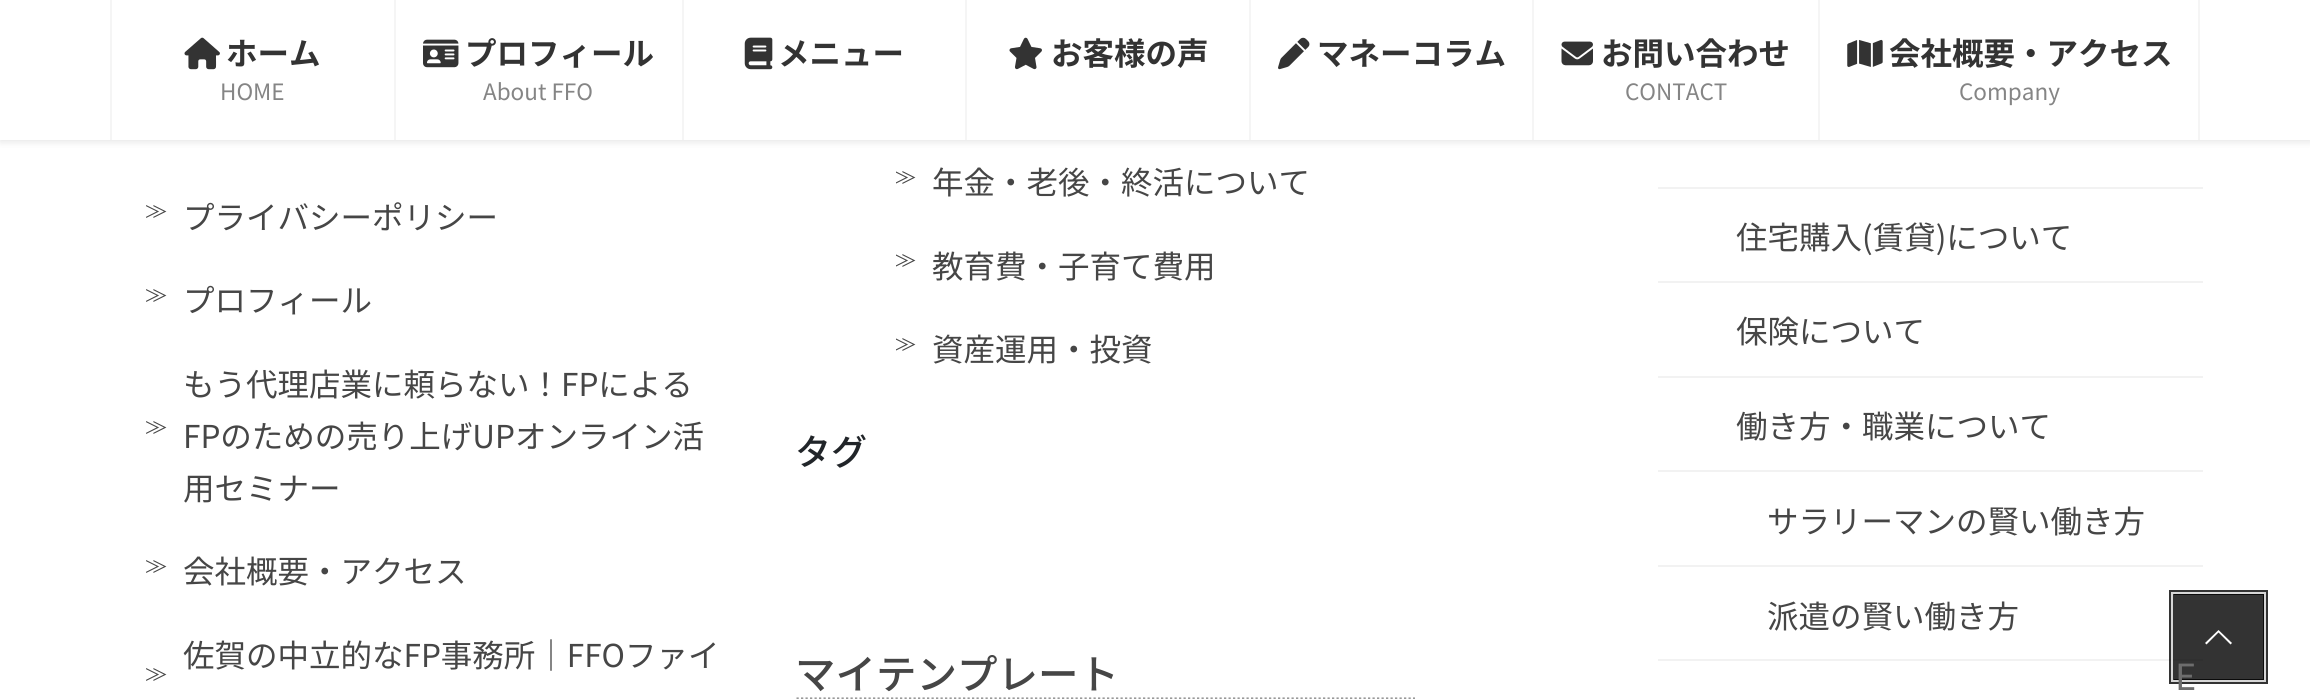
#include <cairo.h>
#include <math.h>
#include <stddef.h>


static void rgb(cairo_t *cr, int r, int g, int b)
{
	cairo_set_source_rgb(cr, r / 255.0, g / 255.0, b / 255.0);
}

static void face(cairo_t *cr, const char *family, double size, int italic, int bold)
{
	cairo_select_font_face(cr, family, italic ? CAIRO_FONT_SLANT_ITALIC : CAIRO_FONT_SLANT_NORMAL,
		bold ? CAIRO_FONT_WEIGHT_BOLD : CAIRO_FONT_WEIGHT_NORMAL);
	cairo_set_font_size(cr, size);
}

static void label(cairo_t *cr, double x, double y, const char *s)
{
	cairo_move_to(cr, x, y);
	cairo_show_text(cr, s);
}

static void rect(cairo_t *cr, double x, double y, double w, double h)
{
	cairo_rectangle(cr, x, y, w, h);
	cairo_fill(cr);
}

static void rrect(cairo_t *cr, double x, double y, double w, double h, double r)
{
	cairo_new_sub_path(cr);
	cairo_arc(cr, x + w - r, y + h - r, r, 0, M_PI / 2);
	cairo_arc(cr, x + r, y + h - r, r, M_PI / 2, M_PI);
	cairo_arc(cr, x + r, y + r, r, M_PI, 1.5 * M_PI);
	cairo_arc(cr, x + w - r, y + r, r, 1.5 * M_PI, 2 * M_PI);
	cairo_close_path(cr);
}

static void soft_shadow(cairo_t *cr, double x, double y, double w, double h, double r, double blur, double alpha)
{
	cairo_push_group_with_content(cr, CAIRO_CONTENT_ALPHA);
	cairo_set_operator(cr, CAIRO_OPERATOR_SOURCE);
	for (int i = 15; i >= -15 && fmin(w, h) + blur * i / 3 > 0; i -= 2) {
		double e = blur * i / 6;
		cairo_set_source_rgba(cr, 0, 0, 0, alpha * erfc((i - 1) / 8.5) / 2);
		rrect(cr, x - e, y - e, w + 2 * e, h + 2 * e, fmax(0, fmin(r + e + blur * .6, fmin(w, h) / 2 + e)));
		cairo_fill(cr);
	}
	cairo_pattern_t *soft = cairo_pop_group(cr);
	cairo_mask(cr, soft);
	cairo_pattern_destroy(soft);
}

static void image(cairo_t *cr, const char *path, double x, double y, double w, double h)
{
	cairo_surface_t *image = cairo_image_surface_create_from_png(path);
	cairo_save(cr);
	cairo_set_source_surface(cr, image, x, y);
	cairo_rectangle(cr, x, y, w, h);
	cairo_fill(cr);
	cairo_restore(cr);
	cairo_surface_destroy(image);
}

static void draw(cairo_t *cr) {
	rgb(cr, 255, 255, 255);
	cairo_paint(cr);
	rgb(cr, 0, 0, 0);
	soft_shadow(cr, 0, 2, 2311, 140, 0, 3.5, 0.1);
	rgb(cr, 255, 255, 255);
	rect(cr, 0, 0, 2310, 140);
	rgb(cr, 245, 245, 245);
	rect(cr, 110, 0, 2, 140);
	image(cr, "image0.png", 184, 37, 36, 33);
	face(cr, "Noto Sans JP", 31.5, 0, 1);
	rgb(cr, 51, 51, 51);
	label(cr, 226, 65, "ホーム");
	face(cr, "Noto Sans JP", 22.5, 0, 0);
	rgb(cr, 133, 133, 133);
	label(cr, 220, 100, "HOME");
	rgb(cr, 245, 245, 245);
	rect(cr, 394, 0, 2, 140);
	image(cr, "image1.png", 423, 39, 36, 29);
	face(cr, "Noto Sans JP", 31.5, 0, 1);
	rgb(cr, 51, 51, 51);
	label(cr, 465, 65, "プロフィール");
	face(cr, "Noto Sans JP", 22.5, 0, 0);
	rgb(cr, 133, 133, 133);
	label(cr, 483, 100, "About FFO");
	rgb(cr, 245, 245, 245);
	rect(cr, 682, 0, 2, 140);
	image(cr, "image2.png", 744, 37, 29, 33);
	face(cr, "Noto Sans JP", 31.5, 0, 1);
	rgb(cr, 51, 51, 51);
	label(cr, 778, 65, "メニュー");
	rgb(cr, 245, 245, 245);
	rect(cr, 965, 0, 2, 140);
	image(cr, "image3.png", 1009, 37, 33, 33);
	rgb(cr, 51, 51, 51);
	label(cr, 1051, 65, "お客様の声");
	rgb(cr, 245, 245, 245);
	rect(cr, 1249, 0, 2, 140);
	image(cr, "image4.png", 1278, 37, 32, 33);
	rgb(cr, 51, 51, 51);
	label(cr, 1317, 65, "マネーコラム");
	rgb(cr, 245, 245, 245);
	rect(cr, 1532, 0, 2, 140);
	image(cr, "image5.png", 1561, 41, 32, 25);
	rgb(cr, 51, 51, 51);
	label(cr, 1601, 65, "お問い合わせ");
	face(cr, "Noto Sans JP", 22.5, 0, 0);
	rgb(cr, 133, 133, 133);
	label(cr, 1625, 100, "CONTACT");
	rgb(cr, 245, 245, 245);
	rect(cr, 2198, 0, 2, 140);
	rect(cr, 1818, 0, 2, 140);
	image(cr, "image6.png", 1847, 39, 36, 28);
	face(cr, "Noto Sans JP", 31.5, 0, 1);
	rgb(cr, 51, 51, 51);
	label(cr, 1889, 65, "会社概要・アクセス");
	face(cr, "Noto Sans JP", 22.5, 0, 0);
	rgb(cr, 133, 133, 133);
	label(cr, 1959, 100, "Company");
	face(cr, "WenQuanYi Zen Hei Medium", 22.5, 0, 0);
	rgb(cr, 70, 70, 70);
	label(cr, 145, 218, "≫");
	face(cr, "Noto Sans JP", 31.5, 0, 0);
	label(cr, 183, 229, "プライバシーポリシー");
	face(cr, "WenQuanYi Zen Hei Medium", 22.5, 0, 0);
	label(cr, 145, 302, "≫");
	face(cr, "Noto Sans JP", 31.5, 0, 0);
	label(cr, 183, 312, "プロフィール");
	label(cr, 183, 396, "もう代理店業に頼らない！FPによる");
	face(cr, "WenQuanYi Zen Hei Medium", 22.5, 0, 0);
	label(cr, 145, 434, "≫");
	face(cr, "Noto Sans JP", 31.5, 0, 0);
	label(cr, 183, 448, "FPのための売り上げUPオンライン活");
	label(cr, 183, 500, "用セミナー");
	face(cr, "WenQuanYi Zen Hei Medium", 22.5, 0, 0);
	label(cr, 145, 573, "≫");
	face(cr, "Noto Sans JP", 31.5, 0, 0);
	label(cr, 183, 583, "会社概要・アクセス");
	label(cr, 183, 667, "佐賀の中立的なFP事務所｜FFOファイ");
	face(cr, "WenQuanYi Zen Hei Medium", 22.5, 0, 0);
	label(cr, 145, 681, "≫");
	cairo_save(cr);
	cairo_rectangle(cr, 896, 155, 519, 52);
	cairo_clip(cr);
	label(cr, 894, 184, "≫");
	cairo_restore(cr);
	face(cr, "Noto Sans JP", 31.5, 0, 0);
	label(cr, 932, 194, "年金・老後・終活について");
	cairo_save(cr);
	cairo_rectangle(cr, 896, 239, 519, 54);
	cairo_clip(cr);
	face(cr, "WenQuanYi Zen Hei Medium", 22.5, 0, 0);
	label(cr, 894, 267, "≫");
	cairo_restore(cr);
	label(cr, 932, 278, "教育費・子育て費用");
	cairo_save(cr);
	cairo_rectangle(cr, 896, 324, 519, 52);
	cairo_clip(cr);
	face(cr, "WenQuanYi Zen Hei Medium", 22.5, 0, 0);
	label(cr, 894, 351, "≫");
	cairo_restore(cr);
	label(cr, 932, 361, "資産運用・投資");
	face(cr, "Noto Sans JP Medium", 36, 0, 0);
	rgb(cr, 33, 37, 41);
	label(cr, 795, 465, "タグ");
	cairo_new_path(cr);
	cairo_move_to(cr, 796.5, 698.5);
	cairo_line_to(cr, 1415, 698.5);
	rgb(cr, 153, 153, 153);
	cairo_set_line_width(cr, 2.2);
	cairo_set_dash(cr, (double[]){2.25, 2.25}, 2, 0);
	cairo_stroke(cr);
	face(cr, "Noto Sans JP Medium", 40.5, 0, 0);
	rgb(cr, 70, 70, 70);
	label(cr, 795, 689, "マイテンプレート");
	rgb(cr, 242, 242, 242);
	rect(cr, 1658, 187, 545, 2);
	rect(cr, 1658, 281, 545, 2);
	face(cr, "Noto Sans JP", 31.5, 0, 0);
	rgb(cr, 70, 70, 70);
	label(cr, 1736, 249, "住宅購入(賃貸)について");
	rgb(cr, 242, 242, 242);
	rect(cr, 1658, 376, 545, 2);
	rgb(cr, 70, 70, 70);
	label(cr, 1736, 343, "保険について");
	rgb(cr, 242, 242, 242);
	rect(cr, 1658, 470, 545, 2);
	rgb(cr, 70, 70, 70);
	label(cr, 1736, 438, "働き方・職業について");
	rgb(cr, 242, 242, 242);
	rect(cr, 1658, 565, 545, 2);
	rgb(cr, 70, 70, 70);
	label(cr, 1767, 533, "サラリーマンの賢い働き方");
	rgb(cr, 242, 242, 242);
	rect(cr, 1658, 659, 545, 2);
	rgb(cr, 70, 70, 70);
	label(cr, 1767, 628, "派遣の賢い働き方");
	cairo_rectangle(cr, 2171.5, 592.5, 94, 89);
	cairo_set_source_rgba(cr, 0, 0, 0, 0.8);
	cairo_set_line_width(cr, 5);
	cairo_set_dash(cr, NULL, 0, 0);
	cairo_stroke(cr);
	cairo_rectangle(cr, 2172, 593, 93, 88);
	cairo_set_source_rgba(cr, 1, 1, 1, 0.8);
	cairo_set_line_width(cr, 2);
	cairo_stroke(cr);
	cairo_set_source_rgba(cr, 0, 0, 0, 0.8);
	rect(cr, 2174, 594, 90, 86);
	rgb(cr, 255, 255, 255);
	cairo_new_path(cr);
	cairo_move_to(cr, 2232, 643);
	cairo_line_to(cr, 2230.5, 644.5);
	cairo_line_to(cr, 2218.5, 632.5);
	cairo_line_to(cr, 2206.5, 644.5);
	cairo_line_to(cr, 2205, 643);
	cairo_line_to(cr, 2218.5, 630);
	cairo_close_path(cr);
	cairo_fill(cr);
	face(cr, "Noto Sans JP", 36, 0, 0);
	rgb(cr, 109, 109, 109);
	label(cr, 2175, 690, "E");
}

int main(void) {
	cairo_surface_t *surface = cairo_image_surface_create(CAIRO_FORMAT_RGB24, 2310, 699);
	cairo_t *cr = cairo_create(surface);
	cairo_font_options_t *options = cairo_font_options_create();
	cairo_font_options_set_hint_metrics(options, CAIRO_HINT_METRICS_OFF);
	cairo_font_options_set_hint_style(options, CAIRO_HINT_STYLE_NONE);
	cairo_set_font_options(cr, options);
	cairo_set_miter_limit(cr, 4);
	draw(cr);
	cairo_surface_write_to_png(surface, "render.png");
	cairo_font_options_destroy(options);
	cairo_destroy(cr);
	cairo_surface_destroy(surface);
	return 0;
}
